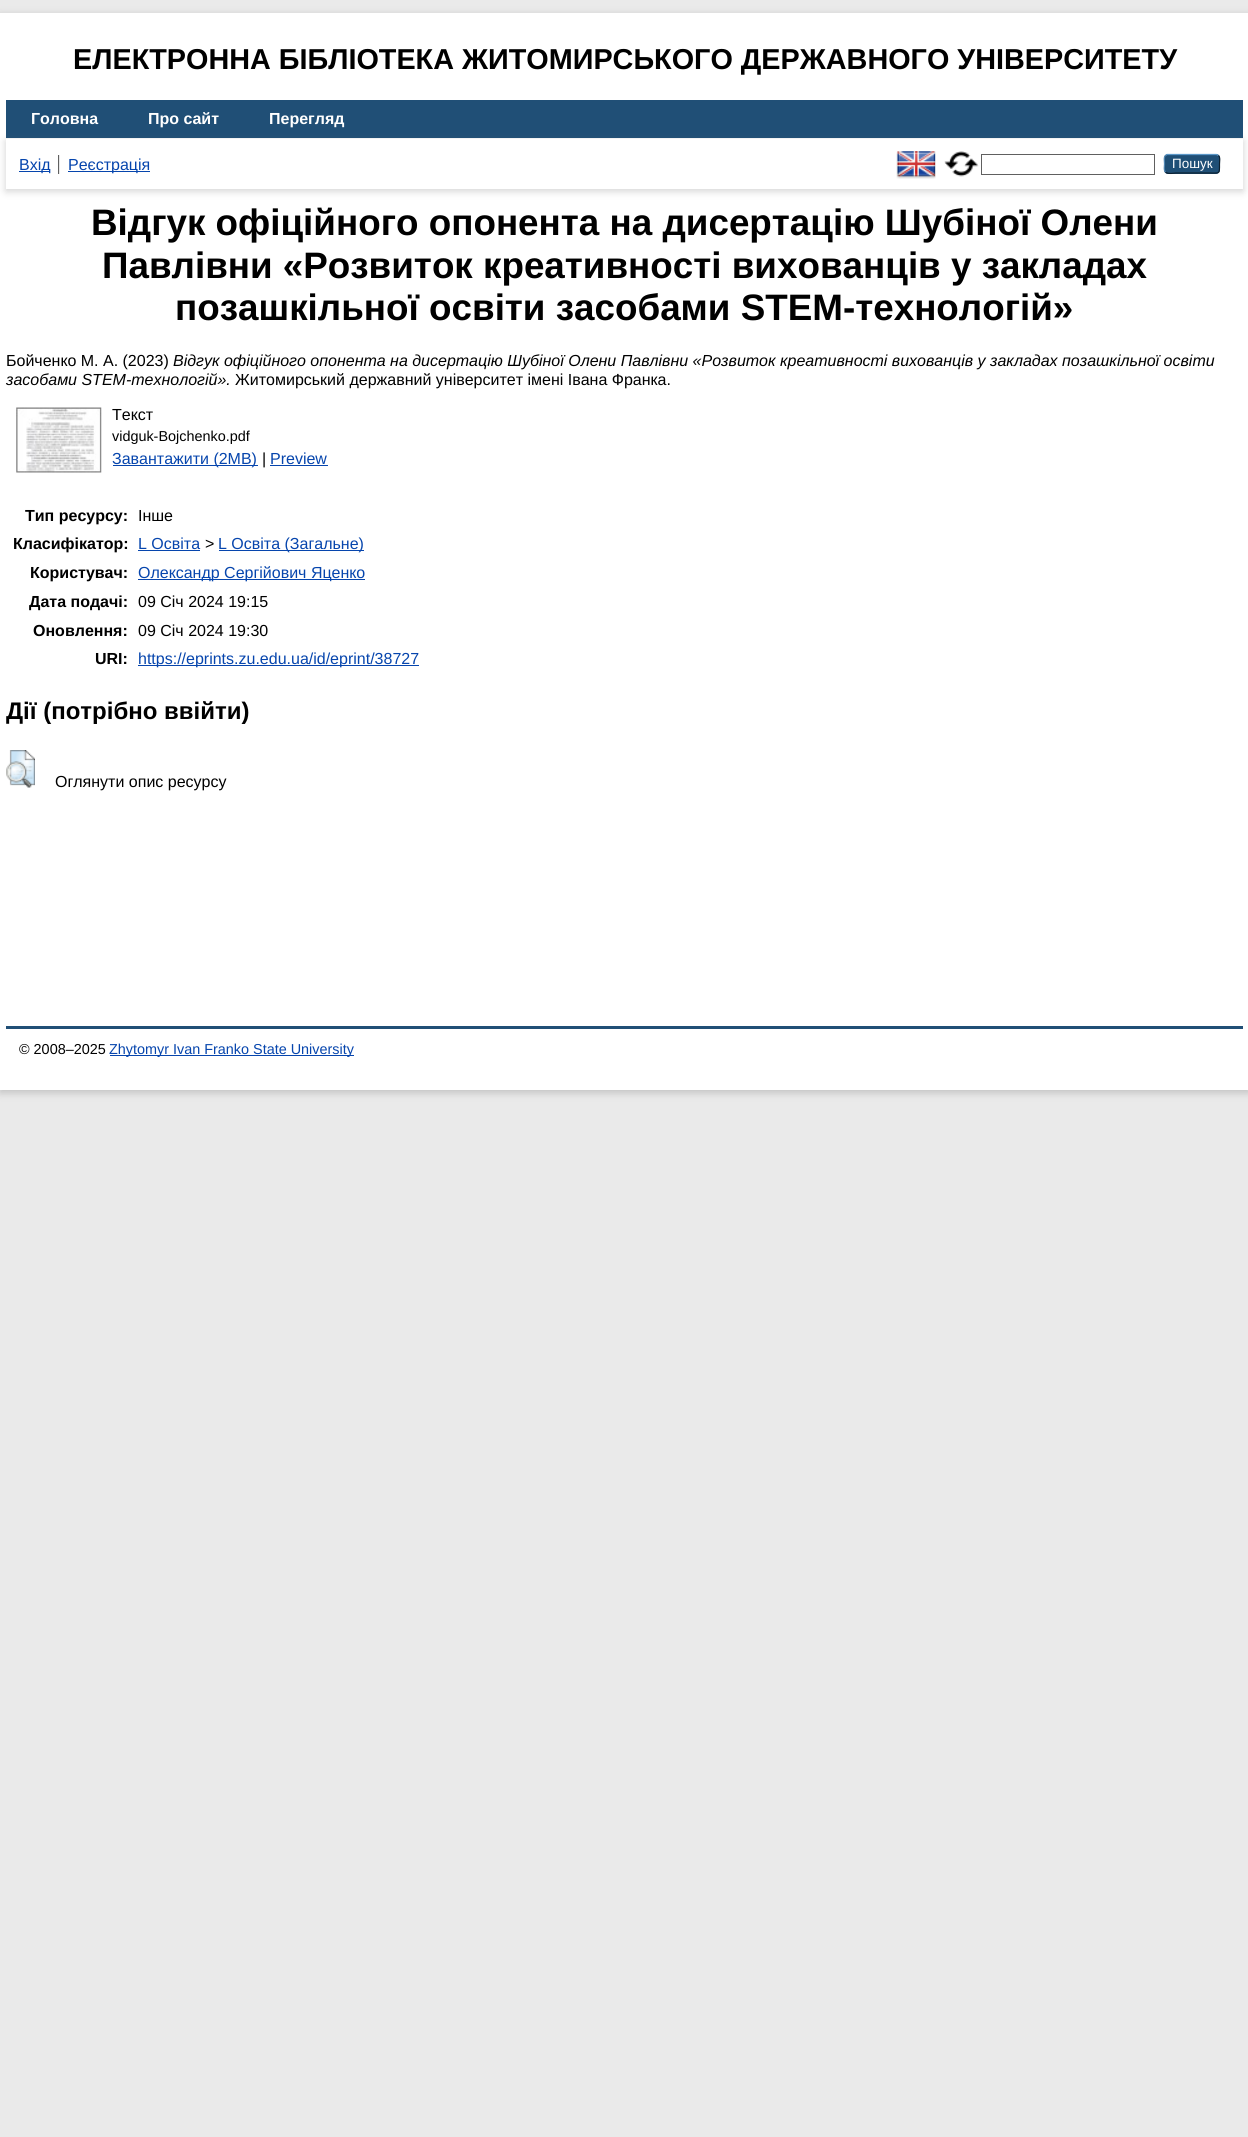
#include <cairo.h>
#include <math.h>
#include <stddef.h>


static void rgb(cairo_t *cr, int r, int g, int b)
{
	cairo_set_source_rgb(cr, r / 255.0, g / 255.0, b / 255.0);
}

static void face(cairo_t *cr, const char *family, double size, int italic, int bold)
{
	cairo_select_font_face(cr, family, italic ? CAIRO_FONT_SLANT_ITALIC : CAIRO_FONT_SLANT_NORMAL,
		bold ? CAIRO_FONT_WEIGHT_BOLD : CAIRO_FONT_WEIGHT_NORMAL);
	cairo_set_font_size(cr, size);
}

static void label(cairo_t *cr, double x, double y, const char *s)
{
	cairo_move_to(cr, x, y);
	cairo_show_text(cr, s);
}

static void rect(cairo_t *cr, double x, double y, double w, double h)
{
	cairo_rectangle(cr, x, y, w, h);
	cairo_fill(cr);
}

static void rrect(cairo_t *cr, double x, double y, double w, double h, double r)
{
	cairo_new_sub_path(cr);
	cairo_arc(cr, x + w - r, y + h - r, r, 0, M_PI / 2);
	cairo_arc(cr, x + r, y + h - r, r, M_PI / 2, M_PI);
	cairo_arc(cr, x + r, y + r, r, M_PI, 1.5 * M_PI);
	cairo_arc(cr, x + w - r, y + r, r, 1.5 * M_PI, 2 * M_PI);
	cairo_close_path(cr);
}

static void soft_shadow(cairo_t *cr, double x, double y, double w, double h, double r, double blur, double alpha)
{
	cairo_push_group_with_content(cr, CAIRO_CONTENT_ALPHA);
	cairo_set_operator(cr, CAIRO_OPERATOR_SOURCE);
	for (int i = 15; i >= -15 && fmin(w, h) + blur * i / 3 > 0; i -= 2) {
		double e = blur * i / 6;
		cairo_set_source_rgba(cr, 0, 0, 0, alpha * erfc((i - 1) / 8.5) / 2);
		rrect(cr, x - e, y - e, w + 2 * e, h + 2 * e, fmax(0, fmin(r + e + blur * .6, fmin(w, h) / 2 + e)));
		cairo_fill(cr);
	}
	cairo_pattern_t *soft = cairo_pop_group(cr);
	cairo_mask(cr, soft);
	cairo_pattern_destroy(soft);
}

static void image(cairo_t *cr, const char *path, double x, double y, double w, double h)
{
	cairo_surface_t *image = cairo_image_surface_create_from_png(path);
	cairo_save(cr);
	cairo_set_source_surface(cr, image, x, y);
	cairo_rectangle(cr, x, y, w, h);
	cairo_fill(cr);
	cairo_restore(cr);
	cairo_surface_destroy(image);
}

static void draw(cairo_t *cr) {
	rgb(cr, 234, 234, 234);
	cairo_paint(cr);
	rgb(cr, 100, 100, 100);
	soft_shadow(cr, 0, 15, 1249, 1078, 0, 4, 0.3);
	rgb(cr, 255, 255, 255);
	rect(cr, 0, 13, 1248, 1077);
	face(cr, "Liberation Sans", 28.8, 0, 1);
	rgb(cr, 0, 0, 0);
	label(cr, 73, 69, "ЕЛЕКТРОННА БІБЛІОТЕКА ЖИТОМИРСЬКОГО ДЕРЖАВНОГО УНІВЕРСИТЕТУ");
	rgb(cr, 32, 79, 118);
	rect(cr, 6, 100, 1237, 38);
	face(cr, "Liberation Sans", 16, 0, 1);
	rgb(cr, 255, 255, 255);
	label(cr, 31, 124, "Головна");
	label(cr, 148, 124, "Про сайт");
	label(cr, 269, 124, "Перегляд");
	rgb(cr, 100, 100, 100);
	soft_shadow(cr, 6, 141, 1237, 50, 0, 4, 0.3);
	rgb(cr, 255, 255, 255);
	rect(cr, 6, 139, 1237, 50);
	rgb(cr, 96, 96, 96);
	rect(cr, 58, 155, 1, 19);
	rgb(cr, 6, 69, 173);
	rect(cr, 19, 171, 31, 1);
	face(cr, "Liberation Sans", 16, 0, 0);
	label(cr, 19, 170, "Вхід");
	rgb(cr, 232, 232, 232);
	rect(cr, 59, 155, 1, 19);
	rgb(cr, 6, 69, 173);
	rect(cr, 68, 171, 82, 1);
	label(cr, 68, 170, "Реєстрація");
	image(cr, "image0.png", 896, 151, 40, 28);
	image(cr, "image1.png", 944, 151, 35, 26);
	cairo_rectangle(cr, 981.5, 154.5, 173, 20);
	rgb(cr, 96, 96, 96);
	cairo_set_line_width(cr, 1);
	cairo_stroke(cr);
	rgb(cr, 31, 79, 118);
	rrect(cr, 1164, 154, 56, 20, 4);
	cairo_fill(cr);
	cairo_new_path(cr);
	cairo_move_to(cr, 1165.5, 155.5);
	cairo_line_to(cr, 1167, 154.5);
	cairo_line_to(cr, 1216.5, 154.5);
	cairo_line_to(cr, 1218.5, 155.5);
	rgb(cr, 91, 151, 199);
	cairo_set_line_width(cr, 1.2);
	cairo_stroke(cr);
	cairo_new_path(cr);
	cairo_move_to(cr, 1218.5, 155.5);
	cairo_curve_to(cr, 1220.5, 157.5, 1219.5, 161.5, 1219.5, 164);
	cairo_curve_to(cr, 1219.5, 174.5, 1220, 173, 1208, 173);
	cairo_line_to(cr, 1175.5, 173);
	cairo_curve_to(cr, 1175, 173, 1167.5, 174.5, 1165.5, 172);
	rgb(cr, 13, 33, 49);
	cairo_stroke(cr);
	cairo_new_path(cr);
	cairo_move_to(cr, 1165.5, 172);
	cairo_curve_to(cr, 1163.5, 170.5, 1164.5, 166, 1164.5, 164);
	cairo_curve_to(cr, 1164.5, 161.5, 1163.5, 157, 1165.5, 155.5);
	rgb(cr, 82, 135, 179);
	cairo_stroke(cr);
	face(cr, "Liberation Sans", 13.5, 0, 0);
	rgb(cr, 255, 255, 255);
	label(cr, 1172, 168, "Пошук");
	face(cr, "Liberation Sans", 36.8, 0, 1);
	rgb(cr, 0, 0, 0);
	label(cr, 91, 235, "Відгук офіційного опонента на дисертацію Шубіної Олени");
	label(cr, 102, 278, "Павлівни «Розвиток креативності вихованців у закладах");
	label(cr, 175, 320, "позашкільної освіти засобами STEM-технологій»");
	face(cr, "Liberation Sans", 16, 0, 0);
	label(cr, 6, 366, "Бойченко М. А. (2023)");
	face(cr, "Liberation Sans", 16, 1, 0);
	label(cr, 173, 366, "Відгук офіційного опонента на дисертацію Шубіної Олени Павлівни «Розвиток креативності вихованців у закладах позашкільної освіти");
	label(cr, 6, 385, "засобами STEM-технологій».");
	face(cr, "Liberation Sans", 16, 0, 0);
	label(cr, 235, 385, "Житомирський державний університет імені Івана Франка.");
	image(cr, "image2.png", 16, 407, 86, 66);
	label(cr, 112, 420, "Текст");
	face(cr, "Liberation Sans", 14.4, 0, 0);
	label(cr, 112, 441, "vidguk-Bojchenko.pdf");
	rgb(cr, 6, 69, 173);
	rect(cr, 113, 465, 145, 1);
	face(cr, "Liberation Sans", 16, 0, 0);
	label(cr, 112, 464, "Завантажити (2MB)");
	rgb(cr, 0, 0, 0);
	label(cr, 262, 464, "|");
	rgb(cr, 6, 69, 173);
	label(cr, 270, 464, "Preview");
	rect(cr, 270, 465, 58, 1);
	face(cr, "Liberation Sans", 16, 0, 1);
	rgb(cr, 0, 0, 0);
	label(cr, 25, 521, "Тип ресурсу:");
	face(cr, "Liberation Sans", 16, 0, 0);
	label(cr, 138, 521, "Інше");
	face(cr, "Liberation Sans", 16, 0, 1);
	label(cr, 13, 549, "Класифікатор:");
	face(cr, "Liberation Sans", 16, 0, 0);
	rgb(cr, 6, 69, 173);
	label(cr, 138, 549, "L Освіта");
	rect(cr, 138, 550, 62, 1);
	rgb(cr, 0, 0, 0);
	label(cr, 205, 549, ">");
	rgb(cr, 6, 69, 173);
	rect(cr, 219, 550, 145, 1);
	label(cr, 218, 549, "L Освіта (Загальне)");
	face(cr, "Liberation Sans", 16, 0, 1);
	rgb(cr, 0, 0, 0);
	label(cr, 30, 578, "Користувач:");
	rgb(cr, 6, 69, 173);
	rect(cr, 138, 579, 227, 1);
	face(cr, "Liberation Sans", 16, 0, 0);
	label(cr, 138, 578, "Олександр Сергійович Яценко");
	face(cr, "Liberation Sans", 16, 0, 1);
	rgb(cr, 0, 0, 0);
	label(cr, 29, 607, "Дата подачі:");
	face(cr, "Liberation Sans", 16, 0, 0);
	label(cr, 138, 607, "09 Січ 2024 19:15");
	face(cr, "Liberation Sans", 16, 0, 1);
	label(cr, 33, 636, "Оновлення:");
	face(cr, "Liberation Sans", 16, 0, 0);
	label(cr, 138, 636, "09 Січ 2024 19:30");
	face(cr, "Liberation Sans", 16, 0, 1);
	label(cr, 95, 664, "URI:");
	rgb(cr, 6, 69, 173);
	rect(cr, 138, 665, 281, 1);
	face(cr, "Liberation Sans", 16, 0, 0);
	label(cr, 138, 664, "https://eprints.zu.edu.ua/id/eprint/38727");
	face(cr, "Liberation Sans", 24, 0, 1);
	rgb(cr, 0, 0, 0);
	label(cr, 6, 719, "Дії (потрібно ввійти)");
	image(cr, "image3.png", 6, 750, 29, 38);
	face(cr, "Liberation Sans", 16, 0, 0);
	label(cr, 55, 787, "Оглянути опис ресурсу");
	rgb(cr, 32, 79, 118);
	rect(cr, 6, 1026, 1237, 3);
	face(cr, "Liberation Sans", 14.4, 0, 0);
	rgb(cr, 0, 0, 0);
	label(cr, 19, 1054, "© 2008–2025");
	rgb(cr, 6, 69, 173);
	rect(cr, 110, 1055, 244, 1);
	label(cr, 109, 1054, "Zhytomyr Ivan Franko State University");
}

int main(void) {
	cairo_surface_t *surface = cairo_image_surface_create(CAIRO_FORMAT_RGB24, 1248, 2137);
	cairo_t *cr = cairo_create(surface);
	cairo_font_options_t *options = cairo_font_options_create();
	cairo_font_options_set_hint_metrics(options, CAIRO_HINT_METRICS_OFF);
	cairo_font_options_set_hint_style(options, CAIRO_HINT_STYLE_NONE);
	cairo_set_font_options(cr, options);
	cairo_set_miter_limit(cr, 4);
	draw(cr);
	cairo_surface_write_to_png(surface, "render.png");
	cairo_font_options_destroy(options);
	cairo_destroy(cr);
	cairo_surface_destroy(surface);
	return 0;
}
